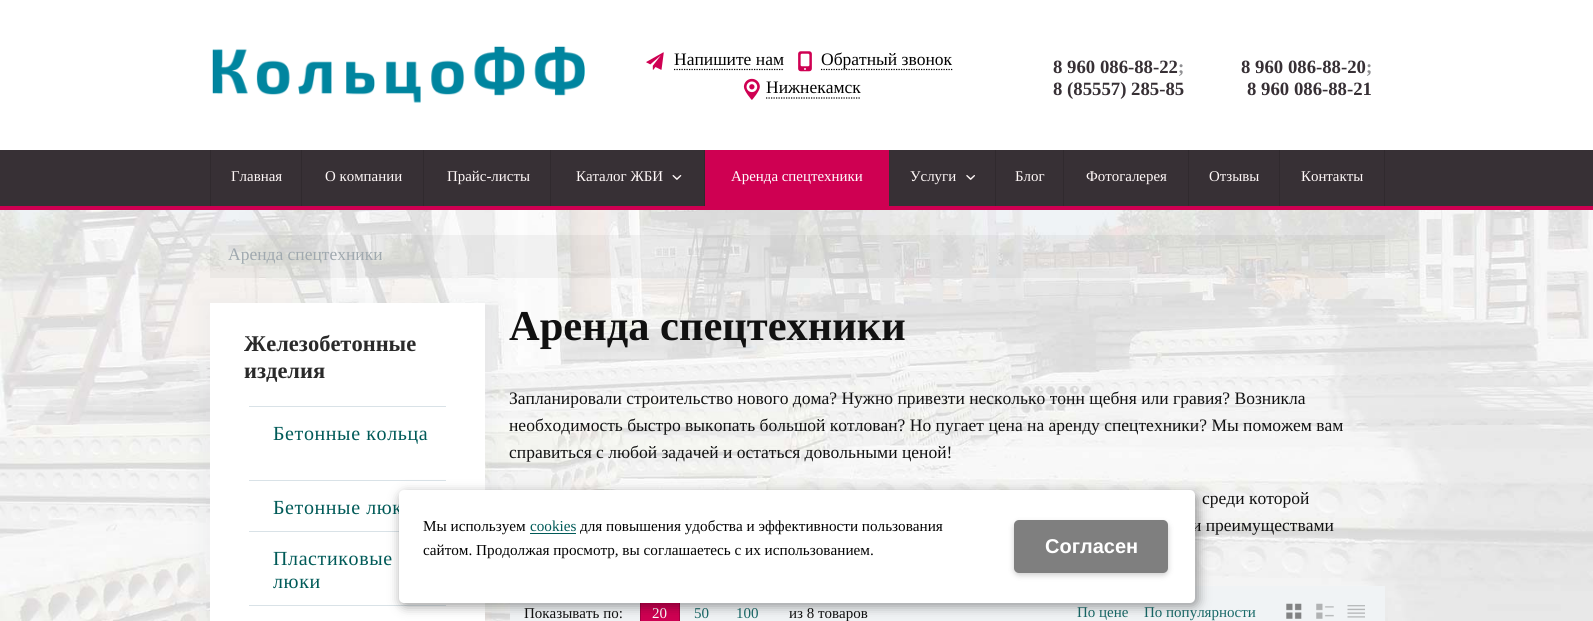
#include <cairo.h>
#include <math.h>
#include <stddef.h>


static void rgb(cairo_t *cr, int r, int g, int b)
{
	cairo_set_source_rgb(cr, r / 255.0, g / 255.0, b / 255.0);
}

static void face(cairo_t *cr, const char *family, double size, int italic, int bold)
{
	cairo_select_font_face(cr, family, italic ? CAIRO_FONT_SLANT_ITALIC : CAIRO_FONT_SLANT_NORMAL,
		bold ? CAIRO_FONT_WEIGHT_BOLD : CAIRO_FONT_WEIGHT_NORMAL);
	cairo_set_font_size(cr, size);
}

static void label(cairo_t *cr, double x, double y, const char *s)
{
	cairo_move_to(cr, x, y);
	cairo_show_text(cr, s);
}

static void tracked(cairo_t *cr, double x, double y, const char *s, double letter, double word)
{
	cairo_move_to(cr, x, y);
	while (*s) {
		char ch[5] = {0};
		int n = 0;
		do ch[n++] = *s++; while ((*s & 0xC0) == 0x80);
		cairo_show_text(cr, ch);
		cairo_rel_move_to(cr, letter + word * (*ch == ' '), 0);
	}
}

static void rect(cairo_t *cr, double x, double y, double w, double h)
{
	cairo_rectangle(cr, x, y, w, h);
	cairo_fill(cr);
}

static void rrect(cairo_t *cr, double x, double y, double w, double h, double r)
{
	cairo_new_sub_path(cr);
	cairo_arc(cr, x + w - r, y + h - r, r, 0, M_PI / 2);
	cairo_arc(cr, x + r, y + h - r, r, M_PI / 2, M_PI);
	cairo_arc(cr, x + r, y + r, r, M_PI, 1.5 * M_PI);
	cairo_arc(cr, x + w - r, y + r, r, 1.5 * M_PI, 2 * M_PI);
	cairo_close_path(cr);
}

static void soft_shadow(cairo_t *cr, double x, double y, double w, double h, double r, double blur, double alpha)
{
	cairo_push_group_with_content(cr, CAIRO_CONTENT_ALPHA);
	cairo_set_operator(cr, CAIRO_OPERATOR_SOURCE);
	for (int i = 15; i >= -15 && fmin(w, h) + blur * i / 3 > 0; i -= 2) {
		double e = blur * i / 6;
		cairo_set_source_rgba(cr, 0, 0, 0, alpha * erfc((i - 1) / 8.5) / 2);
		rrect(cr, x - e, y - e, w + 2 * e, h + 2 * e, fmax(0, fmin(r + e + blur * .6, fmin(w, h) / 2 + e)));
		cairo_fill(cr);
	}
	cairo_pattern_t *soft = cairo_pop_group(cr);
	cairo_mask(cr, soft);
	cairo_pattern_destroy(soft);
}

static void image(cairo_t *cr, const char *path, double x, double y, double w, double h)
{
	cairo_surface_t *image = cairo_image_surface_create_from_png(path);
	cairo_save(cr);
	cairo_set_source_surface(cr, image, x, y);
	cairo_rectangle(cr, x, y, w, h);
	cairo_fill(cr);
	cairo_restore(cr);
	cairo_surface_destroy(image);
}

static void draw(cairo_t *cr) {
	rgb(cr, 255, 255, 255);
	cairo_paint(cr);
	image(cr, "image0.png", 0, 210, 1593, 411);
	image(cr, "image1.png", 212, 46, 373, 57);
	image(cr, "image2.png", 646, 52, 18, 18);
	cairo_new_path(cr);
	cairo_move_to(cr, 674, 69.5);
	cairo_line_to(cr, 784, 69.5);
	rgb(cr, 2, 2, 2);
	cairo_set_line_width(cr, 1.2);
	cairo_set_dash(cr, (double[]){1.25, 1.25}, 2, 0);
	cairo_stroke(cr);
	face(cr, "Liberation Serif", 17.5, 0, 0);
	label(cr, 674, 65, "Напишите нам");
	image(cr, "image3.png", 798, 51, 14, 21);
	cairo_new_path(cr);
	cairo_move_to(cr, 821, 69.5);
	cairo_line_to(cr, 952.5, 69.5);
	cairo_stroke(cr);
	label(cr, 821, 65, "Обратный звонок");
	image(cr, "image4.png", 743, 78, 17, 22);
	cairo_new_path(cr);
	cairo_move_to(cr, 766, 98);
	cairo_line_to(cr, 860, 98);
	cairo_stroke(cr);
	label(cr, 766, 93, "Нижнекамск");
	face(cr, "Liberation Serif", 18.75, 0, 1);
	rgb(cr, 55, 48, 53);
	label(cr, 1053, 73, "8 960 086-88-22");
	rgb(cr, 143, 143, 146);
	label(cr, 1178, 73, ";");
	rgb(cr, 55, 48, 53);
	label(cr, 1053, 95, "8 (85557) 285-85");
	label(cr, 1241, 73, "8 960 086-88-20");
	rgb(cr, 143, 143, 146);
	label(cr, 1366, 73, ";");
	rgb(cr, 55, 48, 53);
	label(cr, 1247, 95, "8 960 086-88-21");
	rect(cr, 0, 150, 1593, 56);
	rgb(cr, 207, 0, 82);
	rect(cr, 0, 206, 1593, 4);
	rgb(cr, 48, 42, 46);
	rect(cr, 210, 150, 1, 56);
	rect(cr, 301, 150, 1, 56);
	face(cr, "Liberation Serif", 14.9, 0, 0);
	rgb(cr, 255, 248, 248);
	label(cr, 231, 181, "Главная");
	rgb(cr, 48, 42, 46);
	rect(cr, 423, 150, 1, 56);
	rgb(cr, 255, 248, 248);
	label(cr, 325, 181, "О компании");
	rgb(cr, 48, 42, 46);
	rect(cr, 550, 150, 1, 56);
	rgb(cr, 255, 248, 248);
	label(cr, 447, 181, "Прайс-листы");
	rgb(cr, 48, 42, 46);
	rect(cr, 704, 150, 1, 56);
	rgb(cr, 255, 248, 248);
	label(cr, 576, 181, "Каталог ЖБИ");
	image(cr, "image5.png", 672, 175, 10, 5);
	rgb(cr, 207, 0, 82);
	rect(cr, 705, 150, 184, 56);
	rgb(cr, 255, 255, 255);
	label(cr, 731, 181, "Аренда спецтехники");
	rgb(cr, 48, 42, 46);
	rect(cr, 995, 150, 1, 56);
	rgb(cr, 255, 248, 248);
	label(cr, 910, 181, "Услуги");
	image(cr, "image6.png", 966, 175, 9, 5);
	rgb(cr, 48, 42, 46);
	rect(cr, 1063, 150, 1, 56);
	rgb(cr, 255, 248, 248);
	label(cr, 1015, 181, "Блог");
	rgb(cr, 48, 42, 46);
	rect(cr, 1188, 150, 1, 56);
	rgb(cr, 255, 248, 248);
	label(cr, 1086, 181, "Фотогалерея");
	rgb(cr, 48, 42, 46);
	rect(cr, 1279, 150, 1, 56);
	rgb(cr, 255, 248, 248);
	label(cr, 1209, 181, "Отзывы");
	rgb(cr, 48, 42, 46);
	rect(cr, 1384, 150, 1, 56);
	rgb(cr, 255, 248, 248);
	label(cr, 1301, 181, "Контакты");
	cairo_set_source_rgba(cr, 0, 0, 0, 0.04);
	rect(cr, 210, 235, 1175, 43);
	face(cr, "Liberation Serif", 17.5, 0, 0);
	rgb(cr, 160, 169, 175);
	label(cr, 228, 260, "Аренда спецтехники");
	rgb(cr, 240, 243, 245);
	rect(cr, 510, 586, 875, 35);
	rgb(cr, 140, 148, 171);
	soft_shadow(cr, 205, 305, 285, 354, 0, 12.5, 0.09);
	rgb(cr, 255, 255, 255);
	rect(cr, 210, 303, 275, 318);
	face(cr, "Liberation Serif", 22.5, 0, 1);
	rgb(cr, 42, 42, 42);
	label(cr, 244, 351, "Железобетонные");
	label(cr, 244, 378, "изделия");
	rgb(cr, 217, 226, 231);
	rect(cr, 249, 406, 197, 1);
	face(cr, "Liberation Serif", 20, 0, 0);
	rgb(cr, 0, 90, 88);
	tracked(cr, 273, 440, "Бетонные кольца", 0.6, 0);
	rgb(cr, 217, 226, 231);
	rect(cr, 249, 480, 197, 1);
	rgb(cr, 0, 90, 88);
	tracked(cr, 273, 514, "Бетонные люк", 0.6, 0);
	rgb(cr, 217, 226, 231);
	rect(cr, 249, 531, 150, 1);
	rgb(cr, 0, 90, 88);
	tracked(cr, 273, 565, "Пластиковые", 0.6, 0);
	tracked(cr, 273, 588, "люки", 0.6, 0);
	rgb(cr, 217, 226, 231);
	rect(cr, 249, 605, 197, 1);
	face(cr, "Liberation Serif", 42.5, 0, 1);
	rgb(cr, 17, 17, 17);
	label(cr, 509, 340, "Аренда спецтехники");
	face(cr, "Liberation Serif", 17.5, 0, 0);
	label(cr, 509, 404, "Запланировали строительство нового дома? Нужно привезти несколько тонн щебня или гравия? Возникла");
	label(cr, 509, 431, "необходимость быстро выкопать большой котлован? Но пугает цена на аренду спецтехники? Мы поможем вам");
	label(cr, 509, 458, "справиться с любой задачей и остаться довольными ценой!");
	label(cr, 1202, 504, "среди которой");
	label(cr, 1192, 531, "и преимуществами");
	face(cr, "Liberation Serif", 15, 0, 0);
	label(cr, 524, 618, "Показывать по:");
	rgb(cr, 207, 0, 82);
	rect(cr, 640, 603, 40, 18);
	cairo_set_source_rgba(cr, 0, 0, 0, 0.2);
	cairo_new_path(cr);
	cairo_move_to(cr, 680, 594);
	cairo_line_to(cr, 680, 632.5);
	cairo_line_to(cr, 679, 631);
	cairo_line_to(cr, 679, 595);
	cairo_close_path(cr);
	cairo_move_to(cr, 640, 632.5);
	cairo_line_to(cr, 640, 594);
	cairo_line_to(cr, 641, 595);
	cairo_line_to(cr, 641, 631);
	cairo_close_path(cr);
	cairo_fill(cr);
	rgb(cr, 255, 255, 255);
	label(cr, 652, 618, "20");
	rgb(cr, 24, 105, 104);
	label(cr, 694, 618, "50");
	label(cr, 736, 618, "100");
	rgb(cr, 17, 17, 17);
	label(cr, 789, 618, "из 8 товаров");
	rgb(cr, 24, 105, 104);
	label(cr, 1077, 617, "По цене");
	label(cr, 1144, 617, "По популярности");
	image(cr, "image7.png", 1286, 603, 16, 16);
	image(cr, "image8.png", 1316, 603, 18, 16);
	image(cr, "image9.png", 1347, 605, 18, 13);
	rgb(cr, 0, 0, 0);
	soft_shadow(cr, 401, 494, 797, 112, 5, 6, 0.4);
	rgb(cr, 255, 255, 255);
	rrect(cr, 399, 490, 796, 113, 5);
	cairo_fill(cr);
	face(cr, "Liberation Serif", 15.2, 0, 0);
	rgb(cr, 2, 2, 2);
	label(cr, 423, 531, "Мы используем");
	rgb(cr, 0, 90, 88);
	label(cr, 530, 531, "cookies");
	rect(cr, 530, 533, 46, 1);
	rgb(cr, 2, 2, 2);
	label(cr, 580, 531, "для повышения удобства и эффективности пользования");
	label(cr, 423, 555, "сайтом. Продолжая просмотр, вы соглашаетесь с их использованием.");
	rgb(cr, 0, 0, 0);
	soft_shadow(cr, 1014, 523, 154, 52, 5, 3, 0.2);
	rgb(cr, 127, 127, 127);
	rrect(cr, 1014, 520, 154, 53, 5);
	cairo_fill(cr);
	face(cr, "Liberation Sans", 20, 0, 1);
	rgb(cr, 255, 255, 255);
	label(cr, 1045, 553, "Cогласен");
}

int main(void) {
	cairo_surface_t *surface = cairo_image_surface_create(CAIRO_FORMAT_RGB24, 1593, 621);
	cairo_t *cr = cairo_create(surface);
	cairo_font_options_t *options = cairo_font_options_create();
	cairo_font_options_set_hint_metrics(options, CAIRO_HINT_METRICS_OFF);
	cairo_font_options_set_hint_style(options, CAIRO_HINT_STYLE_NONE);
	cairo_set_font_options(cr, options);
	cairo_set_miter_limit(cr, 4);
	draw(cr);
	cairo_surface_write_to_png(surface, "render.png");
	cairo_font_options_destroy(options);
	cairo_destroy(cr);
	cairo_surface_destroy(surface);
	return 0;
}
